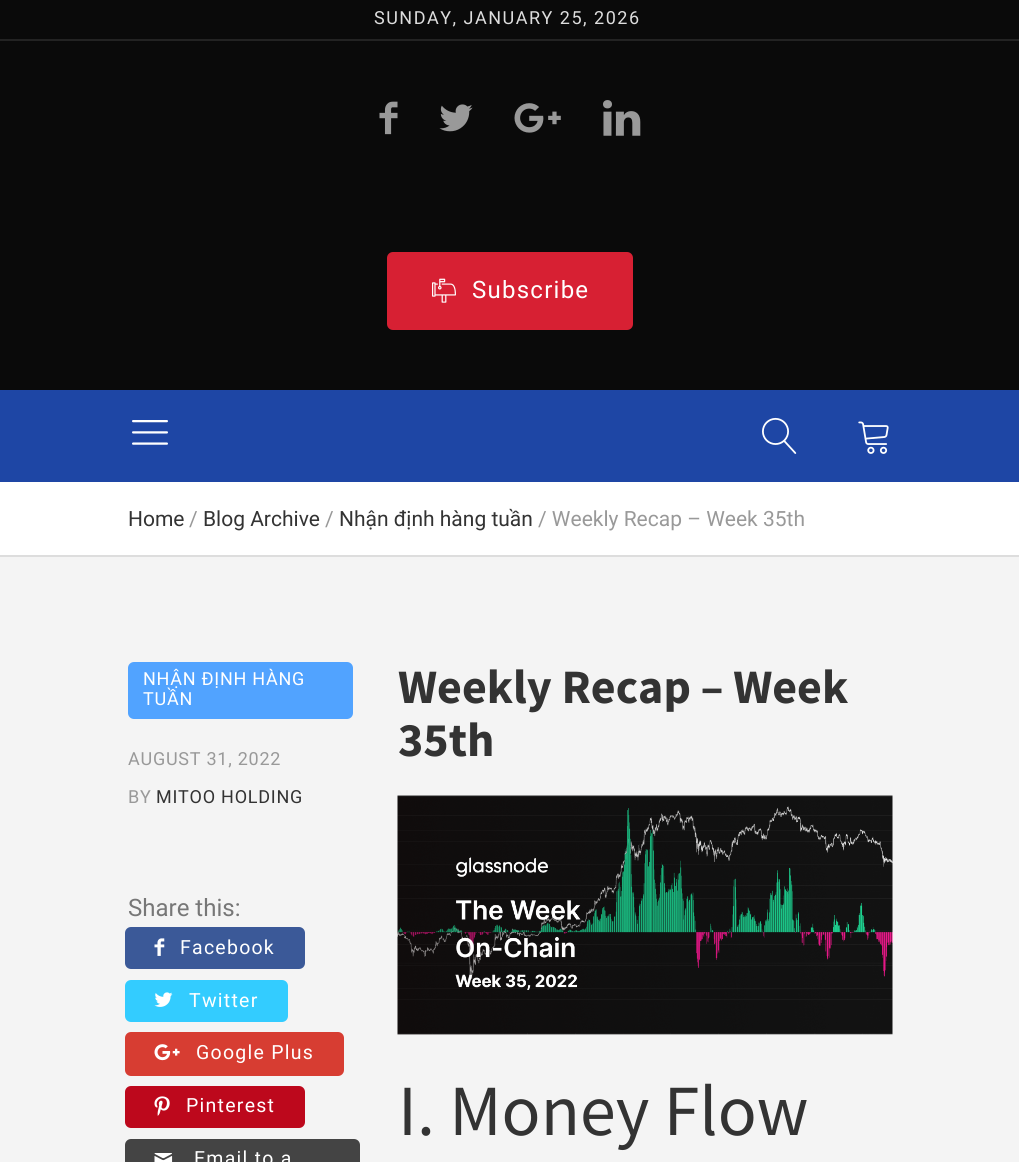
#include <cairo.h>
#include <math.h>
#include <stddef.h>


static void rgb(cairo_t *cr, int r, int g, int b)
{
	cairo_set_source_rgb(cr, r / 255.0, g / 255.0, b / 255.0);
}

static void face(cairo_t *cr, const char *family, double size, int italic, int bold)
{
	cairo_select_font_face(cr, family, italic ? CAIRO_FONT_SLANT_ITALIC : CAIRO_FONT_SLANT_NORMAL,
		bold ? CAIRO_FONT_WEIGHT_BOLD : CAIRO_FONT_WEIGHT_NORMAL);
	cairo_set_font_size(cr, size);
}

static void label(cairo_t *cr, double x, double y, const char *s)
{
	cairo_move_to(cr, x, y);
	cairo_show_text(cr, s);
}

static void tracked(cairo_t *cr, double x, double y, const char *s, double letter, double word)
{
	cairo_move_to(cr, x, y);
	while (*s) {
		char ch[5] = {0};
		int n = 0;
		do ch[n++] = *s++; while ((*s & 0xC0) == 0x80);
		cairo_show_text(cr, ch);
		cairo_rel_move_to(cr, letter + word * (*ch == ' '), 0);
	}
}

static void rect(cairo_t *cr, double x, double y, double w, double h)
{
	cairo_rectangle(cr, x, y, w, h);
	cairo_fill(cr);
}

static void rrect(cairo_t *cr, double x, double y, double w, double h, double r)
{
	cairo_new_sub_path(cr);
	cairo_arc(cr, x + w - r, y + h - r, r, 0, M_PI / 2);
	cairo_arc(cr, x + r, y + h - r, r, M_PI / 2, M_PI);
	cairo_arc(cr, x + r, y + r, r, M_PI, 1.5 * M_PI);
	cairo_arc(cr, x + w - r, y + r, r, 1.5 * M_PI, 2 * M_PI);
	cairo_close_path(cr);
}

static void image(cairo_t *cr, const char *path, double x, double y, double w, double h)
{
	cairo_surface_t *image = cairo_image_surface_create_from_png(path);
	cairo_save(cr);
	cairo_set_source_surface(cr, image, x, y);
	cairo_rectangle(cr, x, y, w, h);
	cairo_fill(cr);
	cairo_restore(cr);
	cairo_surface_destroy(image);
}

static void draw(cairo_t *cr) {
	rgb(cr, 244, 244, 244);
	cairo_paint(cr);
	rgb(cr, 10, 10, 10);
	rect(cr, 0, 0, 1019, 390);
	rgb(cr, 35, 35, 35);
	rect(cr, 0, 39, 1019, 2);
	face(cr, "Roboto", 18, 0, 0);
	rgb(cr, 221, 221, 221);
	tracked(cr, 374, 24, "SUNDAY, JANUARY 25, 2026", 1.5, 0);
	image(cr, "image0.png", 379, 101, 19, 34);
	image(cr, "image1.png", 439, 104, 34, 28);
	image(cr, "image2.png", 514, 103, 47, 30);
	image(cr, "image3.png", 603, 100, 38, 36);
	rgb(cr, 215, 32, 51);
	rrect(cr, 387, 252, 246, 78, 6);
	cairo_fill(cr);
	image(cr, "image4.png", 432, 278, 24, 25);
	face(cr, "Roboto", 24, 0, 0);
	rgb(cr, 255, 255, 255);
	tracked(cr, 472, 298, "Subscribe", 1.25, 0);
	rgb(cr, 30, 70, 165);
	rect(cr, 0, 390, 1019, 92);
	image(cr, "image5.png", 132, 420, 36, 25);
	image(cr, "image6.png", 762, 417, 35, 37);
	image(cr, "image7.png", 858, 421, 31, 33);
	rgb(cr, 255, 255, 255);
	rect(cr, 0, 482, 1019, 73);
	rgb(cr, 221, 221, 221);
	rect(cr, 0, 555, 1019, 2);
	face(cr, "Roboto", 21, 0, 0);
	rgb(cr, 51, 51, 51);
	label(cr, 128, 526, "Home");
	rgb(cr, 153, 153, 153);
	label(cr, 189, 526, "/");
	rgb(cr, 51, 51, 51);
	label(cr, 203, 526, "Blog Archive");
	rgb(cr, 153, 153, 153);
	label(cr, 325, 526, "/");
	rgb(cr, 51, 51, 51);
	label(cr, 339, 526, "Nhận định hàng tuần");
	rgb(cr, 153, 153, 153);
	label(cr, 538, 526, "/ Weekly Recap – Week 35th");
	rgb(cr, 81, 163, 255);
	rrect(cr, 128, 662, 225, 57, 6);
	cairo_fill(cr);
	face(cr, "Roboto", 18, 0, 0);
	rgb(cr, 255, 255, 255);
	tracked(cr, 143, 685, "NHẬN ĐỊNH HÀNG", 0.75, 0);
	tracked(cr, 143, 705, "TUẦN", 0.75, 0);
	rgb(cr, 153, 153, 153);
	tracked(cr, 128, 765, "AUGUST 31, 2022", 0.75, 0);
	tracked(cr, 128, 803, "BY", 0.75, 0);
	rgb(cr, 51, 51, 51);
	tracked(cr, 156, 803, "MITOO HOLDING", 0.75, 0);
	face(cr, "Roboto", 24, 0, 0);
	rgb(cr, 119, 119, 119);
	label(cr, 128, 916, "Share this:");
	rgb(cr, 59, 89, 152);
	rrect(cr, 125, 927, 180, 42, 6);
	cairo_fill(cr);
	image(cr, "image8.png", 154, 938, 11, 18);
	face(cr, "Roboto", 19.5, 0, 0);
	rgb(cr, 255, 255, 255);
	tracked(cr, 180, 954, "Facebook", 1.25, 0);
	rgb(cr, 51, 204, 255);
	rrect(cr, 125, 980, 163, 42, 6);
	cairo_fill(cr);
	image(cr, "image9.png", 154, 992, 19, 15);
	rgb(cr, 255, 255, 255);
	tracked(cr, 189, 1007, "Twitter", 1.25, 0);
	rgb(cr, 215, 61, 50);
	rrect(cr, 125, 1032, 219, 44, 6);
	cairo_fill(cr);
	image(cr, "image10.png", 154, 1044, 26, 17);
	rgb(cr, 255, 255, 255);
	tracked(cr, 196, 1059, "Google Plus", 1.25, 0);
	rgb(cr, 189, 8, 28);
	rrect(cr, 125, 1086, 180, 42, 6);
	cairo_fill(cr);
	image(cr, "image11.png", 154, 1096, 16, 20);
	rgb(cr, 255, 255, 255);
	tracked(cr, 186, 1112, "Pinterest", 1.25, 0);
	rgb(cr, 68, 68, 68);
	rrect(cr, 125, 1139, 235, 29, 6);
	cairo_fill(cr);
	image(cr, "image12.png", 154, 1153, 19, 9);
	rgb(cr, 255, 255, 255);
	tracked(cr, 194, 1165, "Email to a", 1.25, 0);
	face(cr, "Source Sans Pro", 48, 0, 1);
	rgb(cr, 51, 51, 51);
	label(cr, 398, 703, "Weekly Recap – Week");
	label(cr, 398, 756, "35th");
	image(cr, "image13.png", 397, 795, 496, 240);
	face(cr, "Source Sans Pro", 72, 0, 0);
	label(cr, 398, 1135, "I. Money Flow");
}

int main(void) {
	cairo_surface_t *surface = cairo_image_surface_create(CAIRO_FORMAT_RGB24, 1019, 1162);
	cairo_t *cr = cairo_create(surface);
	cairo_font_options_t *options = cairo_font_options_create();
	cairo_font_options_set_hint_metrics(options, CAIRO_HINT_METRICS_OFF);
	cairo_font_options_set_hint_style(options, CAIRO_HINT_STYLE_NONE);
	cairo_set_font_options(cr, options);
	cairo_set_miter_limit(cr, 4);
	draw(cr);
	cairo_surface_write_to_png(surface, "render.png");
	cairo_font_options_destroy(options);
	cairo_destroy(cr);
	cairo_surface_destroy(surface);
	return 0;
}
